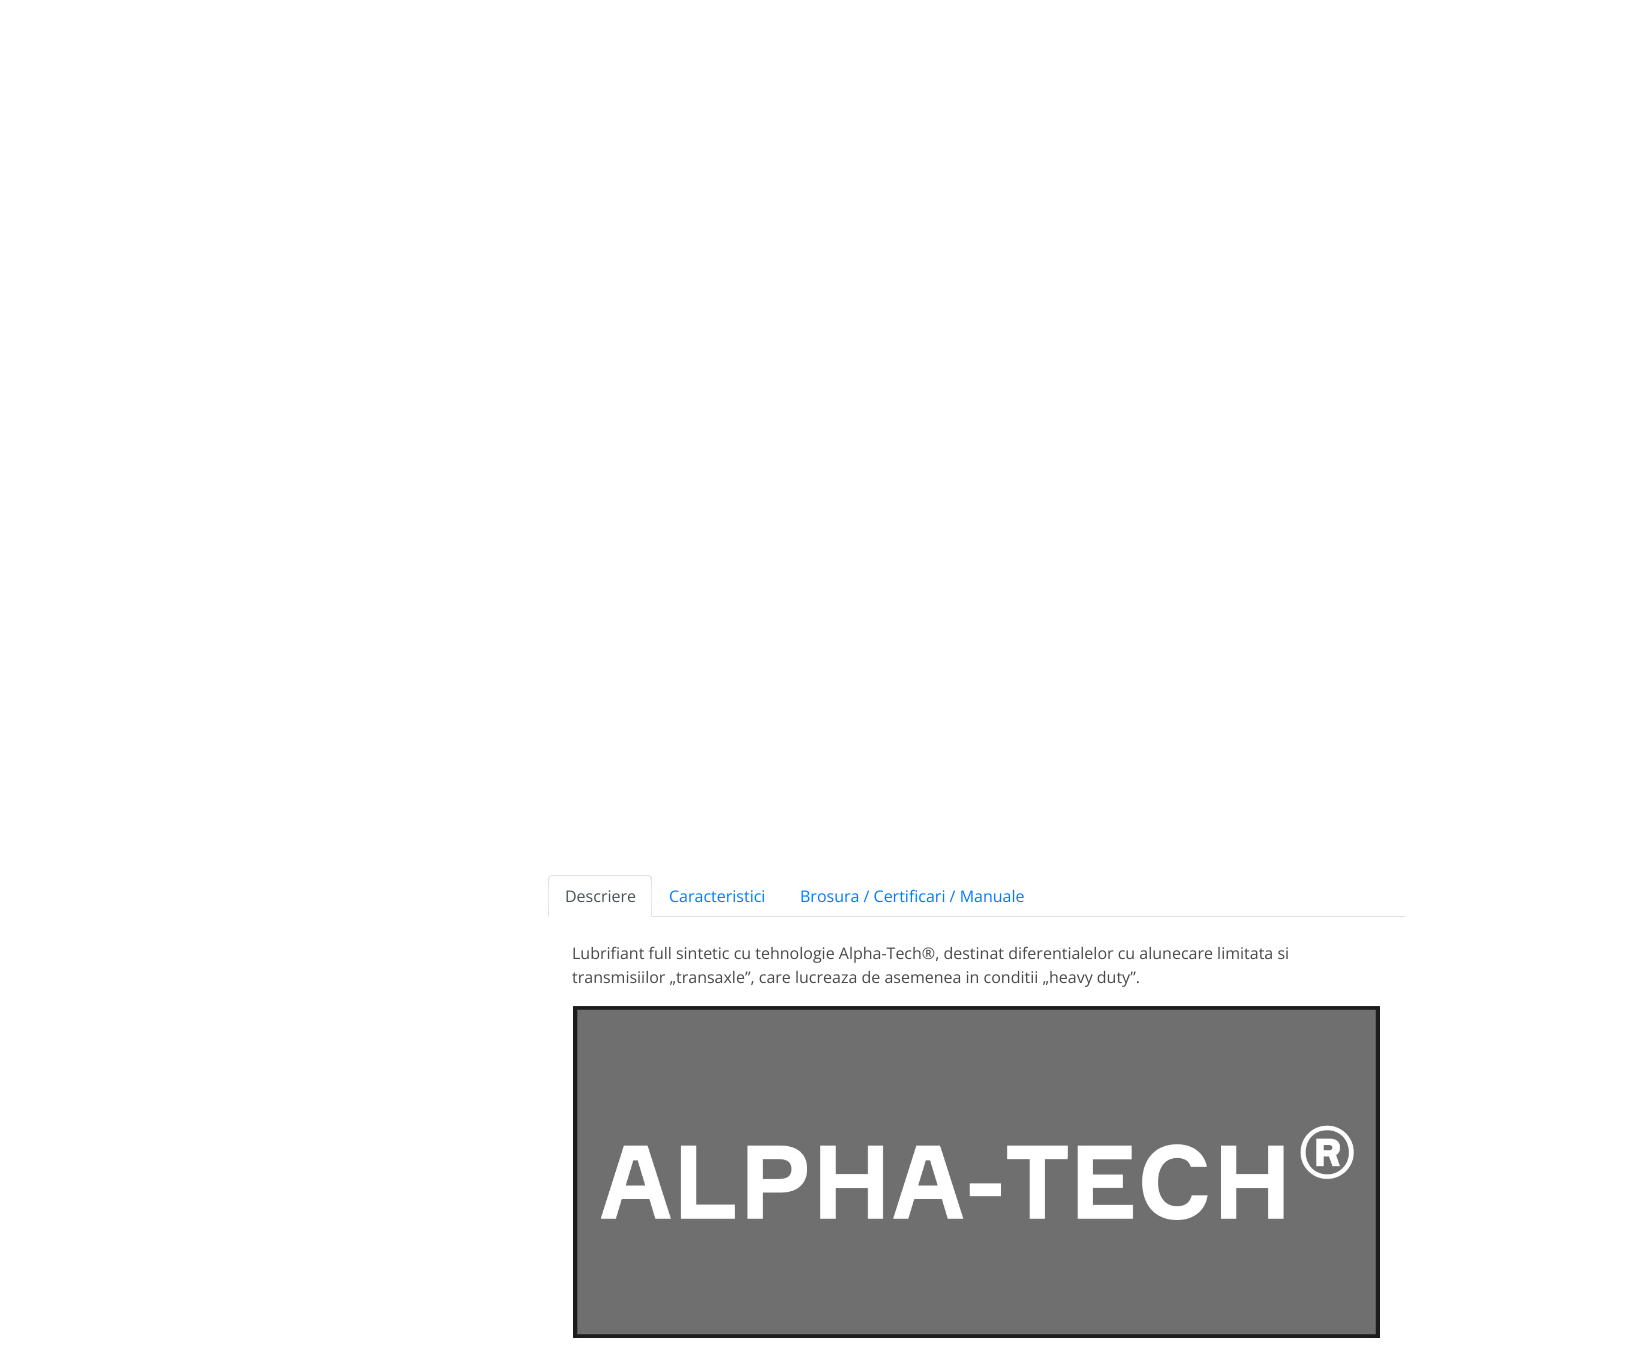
#include <cairo.h>
#include <math.h>
#include <stddef.h>


static void rgb(cairo_t *cr, int r, int g, int b)
{
	cairo_set_source_rgb(cr, r / 255.0, g / 255.0, b / 255.0);
}

static void face(cairo_t *cr, const char *family, double size, int italic, int bold)
{
	cairo_select_font_face(cr, family, italic ? CAIRO_FONT_SLANT_ITALIC : CAIRO_FONT_SLANT_NORMAL,
		bold ? CAIRO_FONT_WEIGHT_BOLD : CAIRO_FONT_WEIGHT_NORMAL);
	cairo_set_font_size(cr, size);
}

static void label(cairo_t *cr, double x, double y, const char *s)
{
	cairo_move_to(cr, x, y);
	cairo_show_text(cr, s);
}

static void rect(cairo_t *cr, double x, double y, double w, double h)
{
	cairo_rectangle(cr, x, y, w, h);
	cairo_fill(cr);
}

static void image(cairo_t *cr, const char *path, double x, double y, double w, double h)
{
	cairo_surface_t *image = cairo_image_surface_create_from_png(path);
	cairo_save(cr);
	cairo_set_source_surface(cr, image, x, y);
	cairo_rectangle(cr, x, y, w, h);
	cairo_fill(cr);
	cairo_restore(cr);
	cairo_surface_destroy(image);
}

static void draw(cairo_t *cr) {
	rgb(cr, 255, 255, 255);
	cairo_paint(cr);
	rgb(cr, 222, 226, 230);
	rect(cr, 652, 916, 753, 1);
	cairo_new_path(cr);
	cairo_move_to(cr, 552, 875);
	cairo_line_to(cr, 549, 876);
	cairo_line_to(cr, 550, 877);
	cairo_line_to(cr, 552, 876);
	cairo_line_to(cr, 648, 876);
	cairo_line_to(cr, 650, 877);
	cairo_line_to(cr, 651, 876);
	cairo_line_to(cr, 648, 875);
	cairo_close_path(cr);
	cairo_fill(cr);
	cairo_new_path(cr);
	cairo_move_to(cr, 652, 917);
	cairo_line_to(cr, 652, 879);
	cairo_curve_to(cr, 652, 878, 652, 877, 651, 876);
	cairo_line_to(cr, 650, 877);
	cairo_curve_to(cr, 652, 879, 651, 911, 651, 916);
	cairo_close_path(cr);
	cairo_fill(cr);
	rgb(cr, 255, 255, 255);
	cairo_new_path(cr);
	cairo_move_to(cr, 652, 917);
	cairo_line_to(cr, 651, 916);
	cairo_line_to(cr, 549, 916);
	cairo_line_to(cr, 548, 917);
	cairo_close_path(cr);
	cairo_fill(cr);
	rgb(cr, 222, 226, 230);
	cairo_new_path(cr);
	cairo_move_to(cr, 548, 917);
	cairo_line_to(cr, 549, 916);
	cairo_curve_to(cr, 549, 911, 548, 879, 550, 877);
	cairo_line_to(cr, 549, 876);
	cairo_line_to(cr, 548, 879);
	cairo_close_path(cr);
	cairo_fill(cr);
	face(cr, "Open Sans", 16, 0, 0);
	rgb(cr, 73, 80, 87);
	label(cr, 565, 902, "Descriere");
	rgb(cr, 0, 123, 255);
	label(cr, 669, 902, "Caracteristici");
	label(cr, 800, 902, "Brosura / Certificari / Manuale");
	rgb(cr, 73, 73, 74);
	label(cr, 572, 959, "Lubrifiant full sintetic cu tehnologie Alpha-Tech®, destinat diferentialelor cu alunecare limitata si");
	label(cr, 572, 983, "transmisiilor „transaxle”, care lucreaza de asemenea in conditii „heavy duty”.");
	image(cr, "image0.png", 573, 1006, 807, 332);
}

int main(void) {
	cairo_surface_t *surface = cairo_image_surface_create(CAIRO_FORMAT_RGB24, 1640, 1356);
	cairo_t *cr = cairo_create(surface);
	cairo_font_options_t *options = cairo_font_options_create();
	cairo_font_options_set_hint_metrics(options, CAIRO_HINT_METRICS_OFF);
	cairo_font_options_set_hint_style(options, CAIRO_HINT_STYLE_NONE);
	cairo_set_font_options(cr, options);
	cairo_set_miter_limit(cr, 4);
	draw(cr);
	cairo_surface_write_to_png(surface, "render.png");
	cairo_font_options_destroy(options);
	cairo_destroy(cr);
	cairo_surface_destroy(surface);
	return 0;
}
